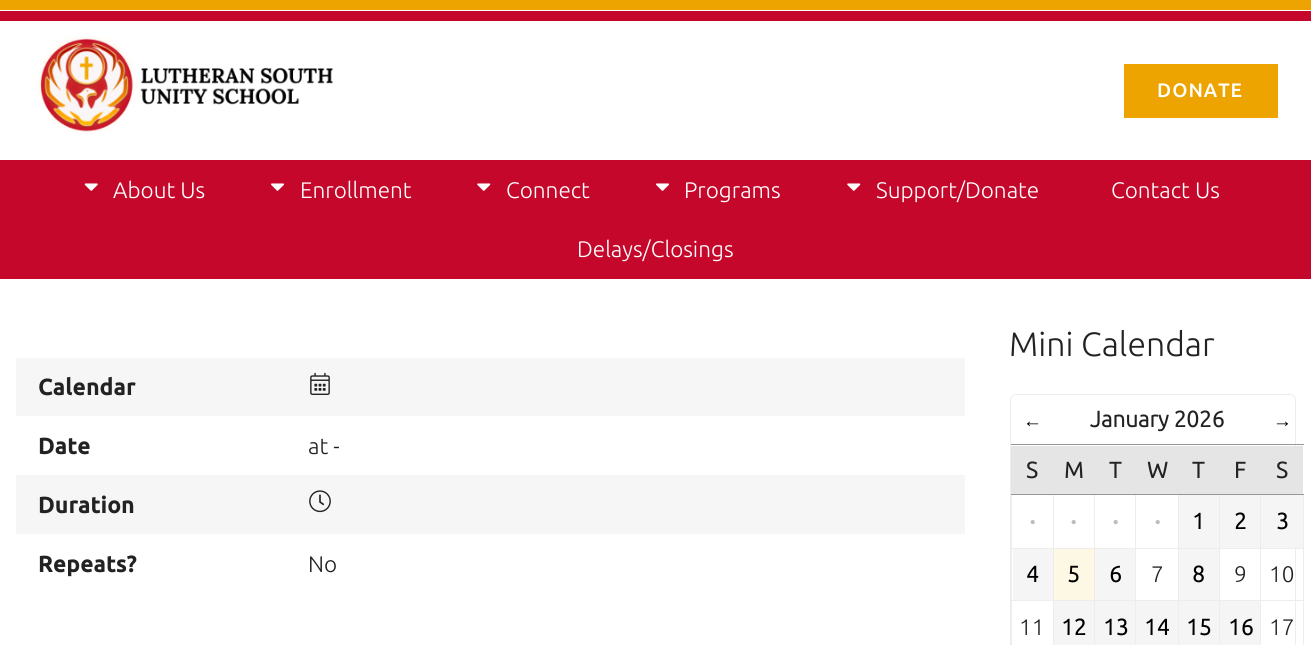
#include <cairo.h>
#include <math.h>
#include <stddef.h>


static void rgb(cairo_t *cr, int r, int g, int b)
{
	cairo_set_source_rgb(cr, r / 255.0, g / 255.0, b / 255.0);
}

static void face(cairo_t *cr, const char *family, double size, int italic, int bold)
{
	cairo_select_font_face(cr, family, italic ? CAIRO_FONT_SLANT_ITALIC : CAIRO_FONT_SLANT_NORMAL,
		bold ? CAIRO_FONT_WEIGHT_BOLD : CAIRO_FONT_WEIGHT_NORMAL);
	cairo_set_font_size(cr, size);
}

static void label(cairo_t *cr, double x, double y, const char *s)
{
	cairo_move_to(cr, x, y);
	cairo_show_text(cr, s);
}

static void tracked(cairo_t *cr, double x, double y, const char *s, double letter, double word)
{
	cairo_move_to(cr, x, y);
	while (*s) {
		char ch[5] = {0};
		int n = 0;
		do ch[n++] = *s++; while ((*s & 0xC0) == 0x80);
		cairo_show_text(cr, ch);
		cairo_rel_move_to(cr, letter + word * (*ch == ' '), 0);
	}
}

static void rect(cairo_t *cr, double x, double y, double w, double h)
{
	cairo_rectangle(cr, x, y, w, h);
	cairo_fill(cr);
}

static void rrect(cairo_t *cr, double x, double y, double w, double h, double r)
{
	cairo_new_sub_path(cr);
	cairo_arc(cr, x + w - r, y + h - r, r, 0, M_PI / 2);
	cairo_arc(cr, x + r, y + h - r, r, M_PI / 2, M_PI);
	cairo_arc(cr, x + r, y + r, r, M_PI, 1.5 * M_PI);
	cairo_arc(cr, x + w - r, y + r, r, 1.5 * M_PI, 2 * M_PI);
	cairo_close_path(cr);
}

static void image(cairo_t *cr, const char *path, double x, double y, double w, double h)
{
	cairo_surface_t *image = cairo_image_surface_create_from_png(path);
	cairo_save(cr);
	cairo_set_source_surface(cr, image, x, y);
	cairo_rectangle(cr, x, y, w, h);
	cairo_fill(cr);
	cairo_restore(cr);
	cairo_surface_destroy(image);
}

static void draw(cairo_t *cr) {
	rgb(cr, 196, 7, 42);
	cairo_paint(cr);
	rgb(cr, 238, 164, 0);
	rect(cr, 0, 0, 1311, 10);
	rgb(cr, 255, 255, 255);
	rect(cr, 0, 10, 1311, 1);
	rect(cr, 0, 21, 1311, 139);
	image(cr, "image0.png", 37, 37, 296, 97);
	rgb(cr, 238, 164, 0);
	rect(cr, 1124, 64, 154, 54);
	face(cr, "Ubuntu Medium", 19.5, 0, 0);
	rgb(cr, 255, 255, 255);
	tracked(cr, 1157, 97, "DONATE", 1, 0);
	image(cr, "image1.png", 84, 183, 14, 8);
	face(cr, "Ubuntu Light", 22.5, 0, 0);
	label(cr, 113, 198, "About Us");
	image(cr, "image2.png", 271, 183, 13, 8);
	label(cr, 300, 198, "Enrollment");
	image(cr, "image3.png", 477, 183, 14, 8);
	label(cr, 506, 198, "Connect");
	image(cr, "image2.png", 656, 183, 13, 8);
	label(cr, 684, 198, "Programs");
	image(cr, "image3.png", 847, 183, 14, 8);
	label(cr, 876, 198, "Support/Donate");
	label(cr, 1111, 198, "Contact Us");
	label(cr, 577, 257, "Delays/Closings");
	rect(cr, 0, 279, 1311, 366);
	rgb(cr, 246, 246, 246);
	rect(cr, 16, 358, 949, 58);
	face(cr, "Ubuntu", 22.5, 0, 1);
	rgb(cr, 34, 34, 34);
	tracked(cr, 38, 395, "Calendar", 0.5, 0);
	image(cr, "image4.png", 310, 373, 20, 22);
	tracked(cr, 38, 454, "Date", 0.5, 0);
	face(cr, "Ubuntu Light", 22.5, 0, 0);
	label(cr, 308, 454, "at -");
	rgb(cr, 246, 246, 246);
	rect(cr, 16, 475, 949, 59);
	face(cr, "Ubuntu", 22.5, 0, 1);
	rgb(cr, 34, 34, 34);
	tracked(cr, 38, 513, "Duration", 0.5, 0);
	image(cr, "image5.png", 309, 490, 22, 23);
	tracked(cr, 38, 572, "Repeats?", 0.5, 0);
	face(cr, "Ubuntu Light", 22.5, 0, 0);
	label(cr, 308, 572, "No");
	face(cr, "Ubuntu Light", 33.75, 0, 0);
	label(cr, 1009, 356, "Mini Calendar");
	rrect(cr, 1010.5, 394.5, 285, 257, 5.5);
	rgb(cr, 237, 237, 237);
	cairo_set_line_width(cr, 1);
	cairo_stroke(cr);
	face(cr, "Liberation Sans", 19, 0, 1);
	rgb(cr, 0, 0, 0);
	label(cr, 1023, 427, "←");
	face(cr, "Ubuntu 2", 22.5, 0, 1);
	rgb(cr, 34, 34, 34);
	label(cr, 1090, 427, "January 2026");
	face(cr, "Liberation Sans", 19, 0, 1);
	rgb(cr, 0, 0, 0);
	label(cr, 1273, 427, "→");
	rgb(cr, 229, 229, 229);
	rect(cr, 1011, 446, 292, 48);
	face(cr, "Ubuntu 2", 22.5, 0, 1);
	rgb(cr, 34, 34, 34);
	label(cr, 1026, 478, "S");
	label(cr, 1064, 478, "M");
	label(cr, 1109, 478, "T");
	label(cr, 1147, 478, "W");
	label(cr, 1192, 478, "T");
	label(cr, 1234, 478, "F");
	rgb(cr, 151, 151, 151);
	rect(cr, 1011, 444, 293, 1);
	rgb(cr, 237, 237, 237);
	rect(cr, 1260, 548, 44, 1);
	rect(cr, 1260, 600, 44, 1);
	rect(cr, 1260, 600, 1, 45);
	rect(cr, 1219, 600, 42, 1);
	rect(cr, 1260, 548, 1, 53);
	rect(cr, 1219, 548, 42, 1);
	rect(cr, 1219, 600, 1, 45);
	rect(cr, 1178, 600, 42, 1);
	rect(cr, 1219, 548, 1, 53);
	rect(cr, 1178, 548, 42, 1);
	rect(cr, 1178, 600, 1, 45);
	rect(cr, 1135, 600, 44, 1);
	rect(cr, 1178, 548, 1, 53);
	rect(cr, 1135, 548, 44, 1);
	rect(cr, 1135, 600, 1, 45);
	rect(cr, 1094, 600, 42, 1);
	rect(cr, 1135, 548, 1, 53);
	rect(cr, 1094, 548, 42, 1);
	rect(cr, 1094, 600, 1, 45);
	rect(cr, 1053, 600, 42, 1);
	rect(cr, 1094, 548, 1, 53);
	rect(cr, 1053, 548, 42, 1);
	rect(cr, 1053, 600, 1, 45);
	rect(cr, 1011, 600, 43, 1);
	rect(cr, 1053, 548, 1, 53);
	rect(cr, 1011, 548, 43, 1);
	rect(cr, 1053, 494, 1, 55);
	rect(cr, 1094, 494, 1, 55);
	rect(cr, 1135, 494, 1, 55);
	rect(cr, 1178, 494, 1, 55);
	rect(cr, 1219, 494, 1, 55);
	rect(cr, 1260, 494, 1, 55);
	rect(cr, 1011, 600, 1, 45);
	rect(cr, 1011, 494, 1, 107);
	rect(cr, 1303, 600, 1, 45);
	rect(cr, 1303, 494, 1, 107);
	rgb(cr, 151, 151, 151);
	rect(cr, 1011, 494, 293, 1);
	rgb(cr, 34, 34, 34);
	label(cr, 1276, 478, "S");
	face(cr, "Ubuntu", 22.5, 0, 1);
	rgb(cr, 188, 188, 188);
	label(cr, 1030, 529, "·");
	label(cr, 1071, 529, "·");
	label(cr, 1113, 529, "·");
	label(cr, 1155, 529, "·");
	rgb(cr, 245, 245, 245);
	rect(cr, 1179, 495, 40, 53);
	face(cr, "Ubuntu 2", 22.5, 0, 1);
	rgb(cr, 0, 0, 0);
	label(cr, 1192, 529, "1");
	rgb(cr, 245, 245, 245);
	rect(cr, 1220, 495, 40, 53);
	rgb(cr, 0, 0, 0);
	label(cr, 1234, 529, "2");
	rgb(cr, 245, 245, 245);
	rect(cr, 1261, 495, 42, 53);
	rgb(cr, 0, 0, 0);
	label(cr, 1276, 529, "3");
	rgb(cr, 245, 245, 245);
	rect(cr, 1013, 549, 40, 51);
	rgb(cr, 0, 0, 0);
	label(cr, 1026, 582, "4");
	rgb(cr, 252, 248, 228);
	rect(cr, 1054, 549, 40, 51);
	rgb(cr, 0, 0, 0);
	label(cr, 1067, 582, "5");
	rgb(cr, 245, 245, 245);
	rect(cr, 1095, 549, 40, 51);
	rgb(cr, 0, 0, 0);
	label(cr, 1109, 582, "6");
	face(cr, "Ubuntu Light", 22.5, 0, 0);
	rgb(cr, 34, 34, 34);
	label(cr, 1151, 582, "7");
	rgb(cr, 245, 245, 245);
	rect(cr, 1179, 549, 40, 51);
	face(cr, "Ubuntu 2", 22.5, 0, 1);
	rgb(cr, 0, 0, 0);
	label(cr, 1192, 582, "8");
	face(cr, "Ubuntu Light", 22.5, 0, 0);
	rgb(cr, 34, 34, 34);
	label(cr, 1234, 582, "9");
	label(cr, 1269, 582, "10");
	label(cr, 1019, 635, "11");
	rgb(cr, 245, 245, 245);
	rect(cr, 1054, 601, 40, 44);
	face(cr, "Ubuntu 2", 22.5, 0, 1);
	rgb(cr, 0, 0, 0);
	label(cr, 1061, 635, "12");
	rgb(cr, 245, 245, 245);
	rect(cr, 1095, 601, 40, 44);
	rgb(cr, 0, 0, 0);
	label(cr, 1103, 635, "13");
	rgb(cr, 245, 245, 245);
	rect(cr, 1136, 601, 42, 44);
	rgb(cr, 0, 0, 0);
	label(cr, 1144, 635, "14");
	rgb(cr, 245, 245, 245);
	rect(cr, 1179, 601, 40, 44);
	rgb(cr, 0, 0, 0);
	label(cr, 1186, 635, "15");
	rgb(cr, 245, 245, 245);
	rect(cr, 1220, 601, 40, 44);
	rgb(cr, 0, 0, 0);
	label(cr, 1228, 635, "16");
	face(cr, "Ubuntu Light", 22.5, 0, 0);
	rgb(cr, 34, 34, 34);
	label(cr, 1269, 635, "17");
}

int main(void) {
	cairo_surface_t *surface = cairo_image_surface_create(CAIRO_FORMAT_RGB24, 1311, 645);
	cairo_t *cr = cairo_create(surface);
	cairo_font_options_t *options = cairo_font_options_create();
	cairo_font_options_set_hint_metrics(options, CAIRO_HINT_METRICS_OFF);
	cairo_font_options_set_hint_style(options, CAIRO_HINT_STYLE_NONE);
	cairo_set_font_options(cr, options);
	cairo_set_miter_limit(cr, 4);
	draw(cr);
	cairo_surface_write_to_png(surface, "render.png");
	cairo_font_options_destroy(options);
	cairo_destroy(cr);
	cairo_surface_destroy(surface);
	return 0;
}
